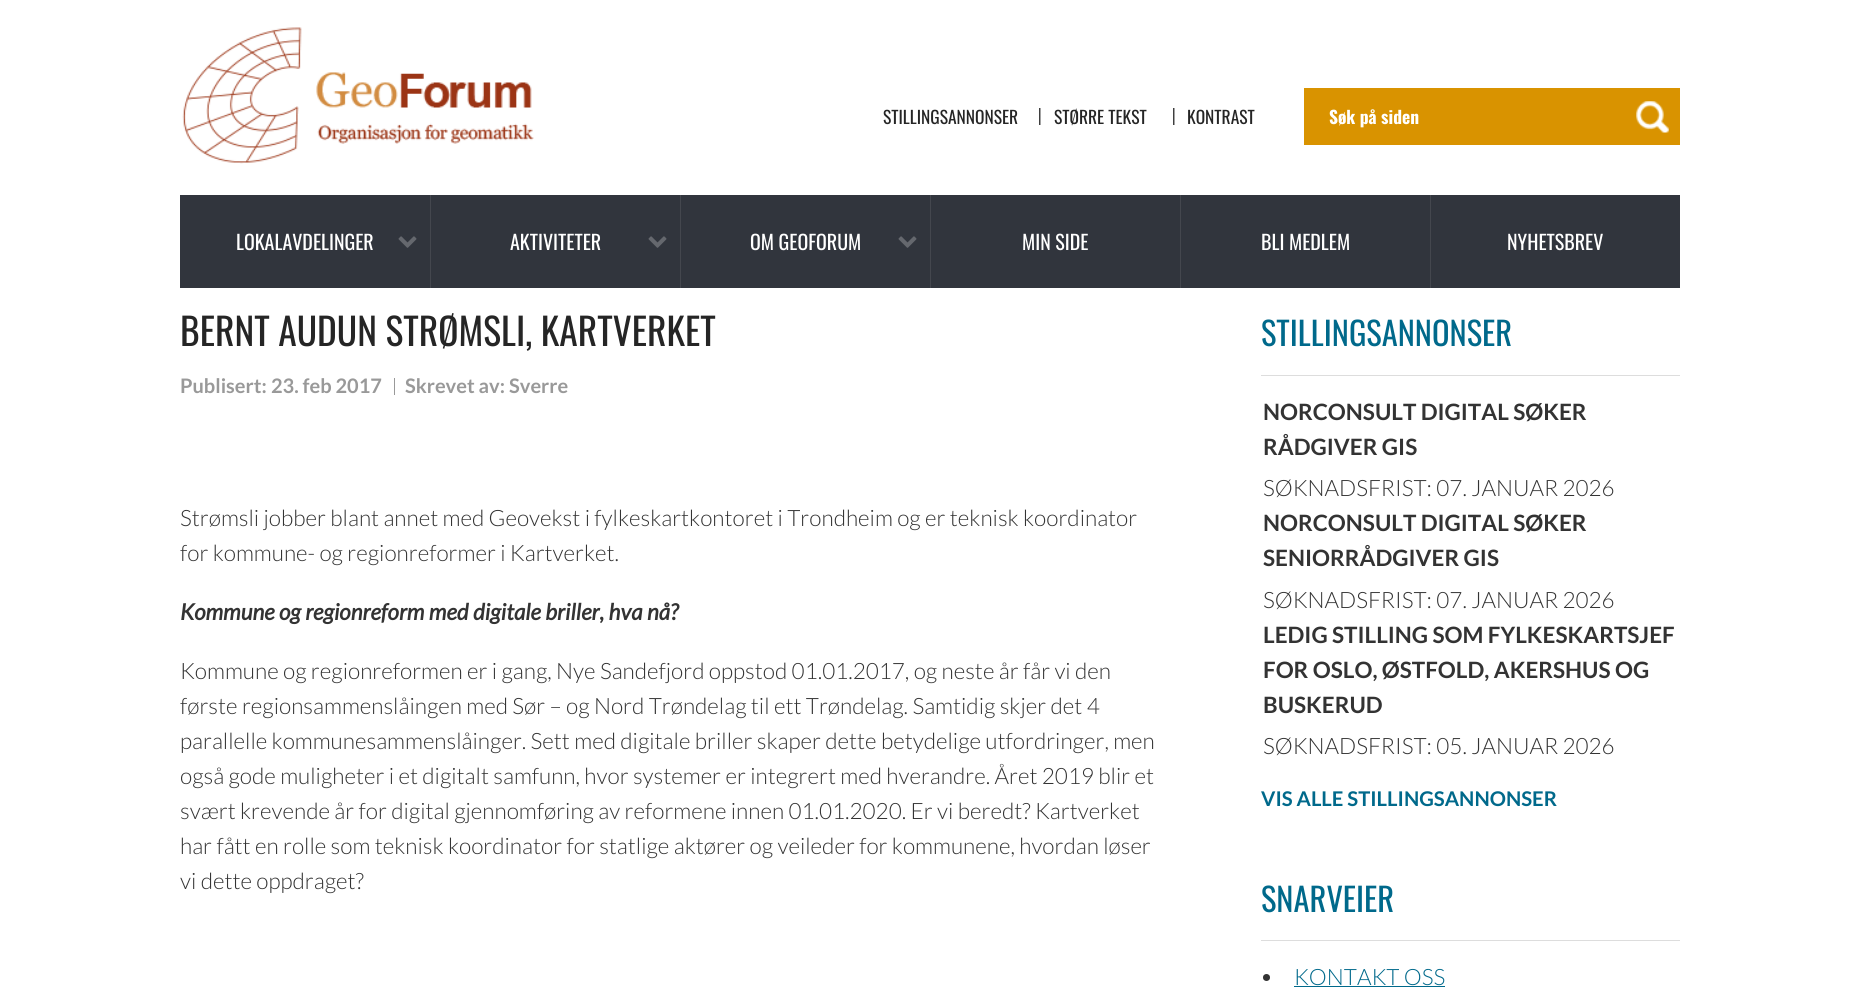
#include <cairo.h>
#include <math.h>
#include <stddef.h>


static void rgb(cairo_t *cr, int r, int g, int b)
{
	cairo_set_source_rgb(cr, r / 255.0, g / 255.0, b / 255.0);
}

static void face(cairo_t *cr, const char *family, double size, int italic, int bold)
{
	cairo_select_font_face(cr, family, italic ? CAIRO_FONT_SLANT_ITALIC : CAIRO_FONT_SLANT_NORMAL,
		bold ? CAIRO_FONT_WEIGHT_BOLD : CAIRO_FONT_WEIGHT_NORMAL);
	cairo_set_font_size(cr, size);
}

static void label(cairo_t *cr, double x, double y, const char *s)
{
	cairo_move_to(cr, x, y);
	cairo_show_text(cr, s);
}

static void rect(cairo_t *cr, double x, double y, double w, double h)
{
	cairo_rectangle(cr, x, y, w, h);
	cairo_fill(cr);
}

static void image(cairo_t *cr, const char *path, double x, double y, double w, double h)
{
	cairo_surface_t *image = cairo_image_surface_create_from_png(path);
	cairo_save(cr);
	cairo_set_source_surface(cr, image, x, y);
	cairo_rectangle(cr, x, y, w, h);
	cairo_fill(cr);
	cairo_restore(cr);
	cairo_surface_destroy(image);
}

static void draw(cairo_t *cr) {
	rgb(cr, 255, 255, 255);
	cairo_paint(cr);
	image(cr, "image0.png", 182, 27, 352, 137);
	face(cr, "Oswald", 17.5, 0, 0);
	rgb(cr, 37, 37, 37);
	label(cr, 883, 124, "STILLINGSANNONSER");
	rgb(cr, 163, 163, 163);
	rect(cr, 1040, 108, 1, 17);
	rgb(cr, 63, 63, 63);
	rect(cr, 1039, 108, 1, 17);
	rgb(cr, 37, 37, 37);
	label(cr, 1054, 124, "STØRRE TEKST");
	rgb(cr, 163, 163, 163);
	rect(cr, 1174, 108, 1, 17);
	rgb(cr, 63, 63, 63);
	rect(cr, 1173, 108, 1, 17);
	rgb(cr, 37, 37, 37);
	label(cr, 1187, 124, "KONTRAST");
	rgb(cr, 217, 147, 0);
	rect(cr, 1304, 88, 376, 57);
	face(cr, "Oswald", 17.5, 0, 1);
	rgb(cr, 255, 255, 255);
	label(cr, 1329, 124, "Søk på siden");
	image(cr, "image1.png", 1636, 101, 33, 32);
	rgb(cr, 49, 53, 61);
	rect(cr, 180, 195, 1500, 93);
	face(cr, "Oswald", 20, 0, 0);
	rgb(cr, 255, 255, 255);
	label(cr, 236, 250, "LOKALAVDELINGER");
	image(cr, "image2.png", 398, 236, 19, 12);
	rgb(cr, 68, 71, 78);
	rect(cr, 430, 195, 1, 93);
	rgb(cr, 255, 255, 255);
	label(cr, 510, 250, "AKTIVITETER");
	image(cr, "image2.png", 648, 236, 19, 12);
	rgb(cr, 68, 71, 78);
	rect(cr, 680, 195, 1, 93);
	rgb(cr, 255, 255, 255);
	label(cr, 750, 250, "OM GEOFORUM");
	image(cr, "image2.png", 898, 236, 19, 12);
	rgb(cr, 68, 71, 78);
	rect(cr, 930, 195, 1, 93);
	rgb(cr, 255, 255, 255);
	label(cr, 1022, 250, "MIN SIDE");
	rgb(cr, 68, 71, 78);
	rect(cr, 1180, 195, 1, 93);
	rgb(cr, 255, 255, 255);
	label(cr, 1261, 250, "BLI MEDLEM");
	rgb(cr, 68, 71, 78);
	rect(cr, 1430, 195, 1, 93);
	rgb(cr, 255, 255, 255);
	label(cr, 1507, 250, "NYHETSBREV");
	face(cr, "Oswald", 37.5, 0, 0);
	rgb(cr, 37, 37, 37);
	label(cr, 180, 346, "BERNT AUDUN STRØMSLI, KARTVERKET");
	face(cr, "Lato", 20, 0, 1);
	rgb(cr, 153, 153, 153);
	label(cr, 180, 393, "Publisert:");
	label(cr, 271, 393, "23. feb 2017");
	rect(cr, 394, 378, 1, 17);
	label(cr, 405, 393, "Skrevet av:");
	label(cr, 509, 393, "Sverre");
	face(cr, "Lato Light", 22.5, 0, 0);
	rgb(cr, 51, 51, 51);
	label(cr, 180, 526, "Strømsli jobber blant annet med Geovekst i fylkeskartkontoret i Trondheim og er teknisk koordinator");
	label(cr, 180, 561, "for kommune- og regionreformer i Kartverket.");
	face(cr, "Lato", 22.5, 1, 1);
	label(cr, 180, 620, "Kommune og regionreform med digitale briller, hva nå?");
	face(cr, "Lato Light", 22.5, 0, 0);
	label(cr, 180, 679, "Kommune og regionreformen er i gang, Nye Sandefjord oppstod 01.01.2017, og neste år får vi den");
	label(cr, 180, 714, "første regionsammenslåingen med Sør – og Nord Trøndelag til ett Trøndelag. Samtidig skjer det 4");
	label(cr, 180, 749, "parallelle kommunesammenslåinger. Sett med digitale briller skaper dette betydelige utfordringer, men");
	label(cr, 180, 784, "også gode muligheter i et digitalt samfunn, hvor systemer er integrert med hverandre. Året 2019 blir et");
	label(cr, 180, 819, "svært krevende år for digital gjennomføring av reformene innen 01.01.2020. Er vi beredt? Kartverket");
	label(cr, 180, 854, "har fått en rolle som teknisk koordinator for statlige aktører og veileder for kommunene, hvordan løser");
	label(cr, 180, 889, "vi dette oppdraget?");
	rgb(cr, 221, 221, 221);
	rect(cr, 1261, 375, 419, 1);
	face(cr, "Oswald", 32.5, 0, 0);
	rgb(cr, 0, 105, 139);
	label(cr, 1261, 346, "STILLINGSANNONSER");
	face(cr, "Lato", 22.5, 0, 1);
	rgb(cr, 51, 51, 51);
	label(cr, 1263, 420, "NORCONSULT DIGITAL SØKER");
	label(cr, 1263, 455, "RÅDGIVER GIS");
	face(cr, "Lato Light", 22.5, 0, 0);
	label(cr, 1263, 496, "SØKNADSFRIST: 07. JANUAR 2026");
	face(cr, "Lato", 22.5, 0, 1);
	label(cr, 1263, 531, "NORCONSULT DIGITAL SØKER");
	label(cr, 1263, 566, "SENIORRÅDGIVER GIS");
	face(cr, "Lato Light", 22.5, 0, 0);
	label(cr, 1263, 608, "SØKNADSFRIST: 07. JANUAR 2026");
	face(cr, "Lato", 22.5, 0, 1);
	label(cr, 1263, 643, "LEDIG STILLING SOM FYLKESKARTSJEF");
	label(cr, 1263, 678, "FOR OSLO, ØSTFOLD, AKERSHUS OG");
	label(cr, 1263, 713, "BUSKERUD");
	face(cr, "Lato Light", 22.5, 0, 0);
	label(cr, 1263, 754, "SØKNADSFRIST: 05. JANUAR 2026");
	face(cr, "Lato", 20.25, 0, 1);
	rgb(cr, 0, 105, 139);
	label(cr, 1261, 806, "VIS ALLE STILLINGSANNONSER");
	rgb(cr, 221, 221, 221);
	rect(cr, 1261, 940, 419, 1);
	face(cr, "Oswald", 32.5, 0, 0);
	rgb(cr, 0, 105, 139);
	label(cr, 1261, 912, "SNARVEIER");
	rgb(cr, 51, 51, 51);
	cairo_new_path(cr);
	cairo_arc(cr, 1266.5, 977.5, 3.5, 0, 2 * M_PI);
	cairo_fill(cr);
	face(cr, "Lato Light", 22.5, 0, 0);
	rgb(cr, 0, 105, 139);
	label(cr, 1294, 985, "KONTAKT OSS");
	rect(cr, 1294, 986, 151, 1);
}

int main(void) {
	cairo_surface_t *surface = cairo_image_surface_create(CAIRO_FORMAT_RGB24, 1859, 1007);
	cairo_t *cr = cairo_create(surface);
	cairo_font_options_t *options = cairo_font_options_create();
	cairo_font_options_set_hint_metrics(options, CAIRO_HINT_METRICS_OFF);
	cairo_font_options_set_hint_style(options, CAIRO_HINT_STYLE_NONE);
	cairo_set_font_options(cr, options);
	cairo_set_miter_limit(cr, 4);
	draw(cr);
	cairo_surface_write_to_png(surface, "render.png");
	cairo_font_options_destroy(options);
	cairo_destroy(cr);
	cairo_surface_destroy(surface);
	return 0;
}
